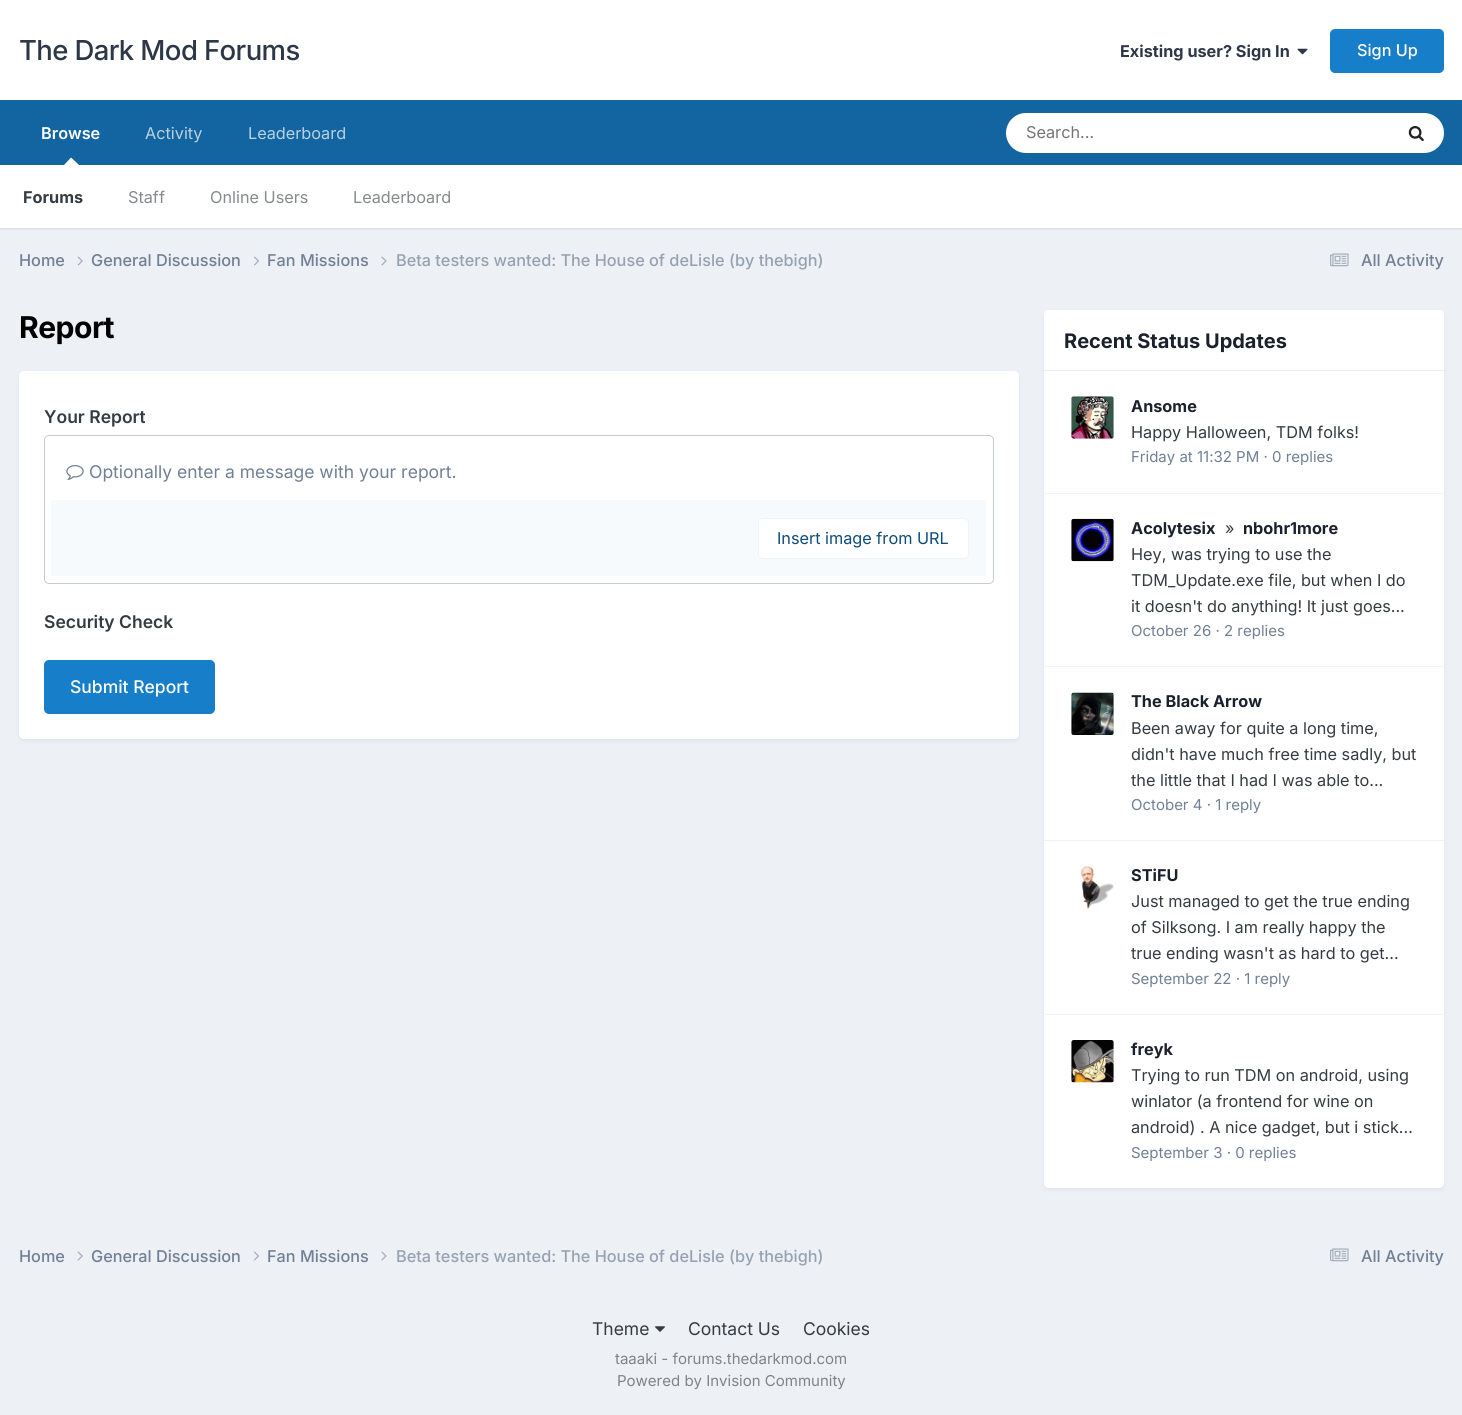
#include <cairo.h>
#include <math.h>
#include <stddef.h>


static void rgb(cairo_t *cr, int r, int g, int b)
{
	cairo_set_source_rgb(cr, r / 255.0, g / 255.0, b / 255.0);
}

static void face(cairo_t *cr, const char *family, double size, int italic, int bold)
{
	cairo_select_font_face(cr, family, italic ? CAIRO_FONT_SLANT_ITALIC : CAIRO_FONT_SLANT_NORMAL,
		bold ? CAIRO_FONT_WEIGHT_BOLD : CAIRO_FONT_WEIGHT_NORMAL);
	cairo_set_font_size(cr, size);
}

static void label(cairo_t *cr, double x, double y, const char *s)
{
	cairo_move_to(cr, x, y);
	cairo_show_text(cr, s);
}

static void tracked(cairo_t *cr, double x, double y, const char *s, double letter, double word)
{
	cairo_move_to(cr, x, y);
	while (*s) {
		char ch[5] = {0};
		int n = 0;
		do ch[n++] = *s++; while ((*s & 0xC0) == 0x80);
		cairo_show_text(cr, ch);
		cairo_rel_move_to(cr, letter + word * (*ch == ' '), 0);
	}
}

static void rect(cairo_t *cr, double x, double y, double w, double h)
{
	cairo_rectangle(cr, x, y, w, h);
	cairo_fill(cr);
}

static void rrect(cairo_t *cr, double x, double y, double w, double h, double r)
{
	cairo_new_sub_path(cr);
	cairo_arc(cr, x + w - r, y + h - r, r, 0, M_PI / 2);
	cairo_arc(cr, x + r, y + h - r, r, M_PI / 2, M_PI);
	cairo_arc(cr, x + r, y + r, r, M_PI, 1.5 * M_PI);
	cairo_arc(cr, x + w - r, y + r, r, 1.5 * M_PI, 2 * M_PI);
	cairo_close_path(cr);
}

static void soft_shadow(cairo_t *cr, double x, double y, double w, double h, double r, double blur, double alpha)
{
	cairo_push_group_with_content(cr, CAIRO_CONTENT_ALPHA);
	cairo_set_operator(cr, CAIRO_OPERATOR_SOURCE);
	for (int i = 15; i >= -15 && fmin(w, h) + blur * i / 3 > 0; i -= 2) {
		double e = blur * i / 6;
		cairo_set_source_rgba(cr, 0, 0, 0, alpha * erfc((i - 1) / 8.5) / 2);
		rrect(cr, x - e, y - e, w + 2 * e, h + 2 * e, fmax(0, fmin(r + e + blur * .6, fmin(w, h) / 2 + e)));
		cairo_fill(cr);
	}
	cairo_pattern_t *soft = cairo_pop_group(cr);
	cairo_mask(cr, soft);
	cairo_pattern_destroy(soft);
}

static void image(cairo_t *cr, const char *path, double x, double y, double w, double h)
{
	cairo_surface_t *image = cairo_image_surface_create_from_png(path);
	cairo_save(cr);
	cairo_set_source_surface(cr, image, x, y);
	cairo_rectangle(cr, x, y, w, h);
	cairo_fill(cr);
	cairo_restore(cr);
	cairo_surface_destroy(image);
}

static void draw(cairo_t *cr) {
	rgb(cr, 237, 240, 244);
	cairo_paint(cr);
	rgb(cr, 255, 255, 255);
	rect(cr, 0, 0, 1462, 100);
	face(cr, "Inter Medium", 27.5, 0, 0);
	rgb(cr, 45, 55, 72);
	tracked(cr, 19, 60, "The Dark Mod Forums", -0.6, 0);
	face(cr, "Inter", 16.25, 0, 1);
	label(cr, 1120, 57, "Existing user? Sign In");
	image(cr, "image0.png", 1297, 48, 11, 7);
	rgb(cr, 23, 126, 201);
	rrect(cr, 1330, 29, 114, 44, 5);
	cairo_fill(cr);
	face(cr, "Inter Medium", 16.25, 0, 0);
	rgb(cr, 255, 255, 255);
	label(cr, 1357, 56, "Sign Up");
	rgb(cr, 18, 101, 161);
	rect(cr, 0, 100, 1462, 65);
	face(cr, "Inter", 16.25, 0, 0);
	rgb(cr, 184, 209, 227);
	label(cr, 145, 139, "Activity");
	face(cr, "Inter SemiBold", 16.25, 0, 0);
	rgb(cr, 255, 255, 255);
	label(cr, 41, 139, "Browse");
	rgb(cr, 0, 0, 0);
	soft_shadow(cr, 0, 166, 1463, 63, 0, 1, 0.1);
	rgb(cr, 255, 255, 255);
	cairo_new_path(cr);
	cairo_move_to(cr, 79, 165);
	cairo_line_to(cr, 64, 165);
	cairo_line_to(cr, 71, 157.5);
	cairo_close_path(cr);
	cairo_fill(cr);
	rect(cr, 0, 165, 1462, 63);
	face(cr, "Inter", 16.25, 0, 1);
	rgb(cr, 53, 60, 65);
	label(cr, 23, 203, "Forums");
	face(cr, "Inter", 16.25, 0, 0);
	rgb(cr, 134, 138, 141);
	label(cr, 128, 203, "Staff");
	label(cr, 210, 203, "Online Users");
	label(cr, 353, 203, "Leaderboard");
	rgb(cr, 184, 209, 227);
	label(cr, 248, 139, "Leaderboard");
	rgb(cr, 255, 255, 255);
	rrect(cr, 1006, 113, 438, 40, 20);
	cairo_fill(cr);
	rgb(cr, 117, 117, 117);
	label(cr, 1026, 138, "Search...");
	image(cr, "image1.png", 1408, 126, 16, 16);
	face(cr, "Inter Medium", 16.25, 0, 0);
	rgb(cr, 113, 128, 150);
	label(cr, 19, 266, "Home");
	image(cr, "image2.png", 77, 256, 6, 10);
	label(cr, 91, 266, "General Discussion");
	image(cr, "image3.png", 254, 256, 5, 10);
	label(cr, 267, 266, "Fan Missions");
	image(cr, "image4.png", 381, 256, 6, 10);
	rgb(cr, 150, 162, 178);
	label(cr, 396, 266, "Beta testers wanted: The House of deLisle (by thebigh)");
	image(cr, "image5.png", 1330, 253, 19, 14);
	rgb(cr, 113, 128, 150);
	label(cr, 1361, 266, "All Activity");
	face(cr, "Inter", 30, 0, 1);
	rgb(cr, 0, 0, 0);
	tracked(cr, 19, 338, "Report", -0.5, 0);
	rgb(cr, 45, 55, 72);
	soft_shadow(cr, 20, 375, 998, 365, 4, 2.5, 0.1);
	rgb(cr, 255, 255, 255);
	rrect(cr, 19, 371, 1000, 368, 5);
	cairo_fill(cr);
	face(cr, "Inter SemiBold", 17.5, 0, 0);
	rgb(cr, 53, 60, 65);
	label(cr, 44, 423, "Your Report");
	rrect(cr, 44.5, 435.5, 949, 148, 4.5);
	rgb(cr, 198, 204, 213);
	cairo_set_line_width(cr, 1);
	cairo_stroke(cr);
	image(cr, "image6.png", 66, 465, 18, 15);
	face(cr, "Inter", 17.5, 0, 0);
	rgb(cr, 113, 128, 150);
	label(cr, 89, 478, "Optionally enter a message with your report.");
	rgb(cr, 247, 250, 252);
	rect(cr, 51, 500, 935, 76);
	rgb(cr, 255, 255, 255);
	rrect(cr, 758, 518, 211, 41, 5);
	cairo_fill(cr);
	rrect(cr, 758.5, 518.5, 210, 40, 4.5);
	cairo_set_source_rgba(cr, 0.055, 0.298, 0.475, 0.07);
	cairo_stroke(cr);
	face(cr, "Inter", 16.25, 0, 0);
	rgb(cr, 14, 76, 121);
	label(cr, 777, 544, "Insert image from URL");
	face(cr, "Inter SemiBold", 17.5, 0, 0);
	rgb(cr, 53, 60, 65);
	label(cr, 44, 628, "Security Check");
	rgb(cr, 23, 126, 201);
	rrect(cr, 44, 660, 171, 54, 5);
	cairo_fill(cr);
	face(cr, "Inter Medium", 17.5, 0, 0);
	rgb(cr, 255, 255, 255);
	label(cr, 70, 693, "Submit Report");
	rgb(cr, 45, 55, 72);
	soft_shadow(cr, 1045, 314, 398, 875, 4, 2.5, 0.1);
	rgb(cr, 255, 255, 255);
	rrect(cr, 1044, 310, 400, 878, 5);
	cairo_fill(cr);
	cairo_new_path(cr);
	cairo_move_to(cr, 1049, 310);
	cairo_line_to(cr, 1439, 310);
	cairo_curve_to(cr, 1442, 310, 1444, 312, 1444, 315);
	cairo_line_to(cr, 1444, 371);
	cairo_line_to(cr, 1044, 371);
	cairo_line_to(cr, 1044, 315);
	cairo_curve_to(cr, 1044, 312, 1046, 310, 1049, 310);
	cairo_close_path(cr);
	cairo_fill(cr);
	rgb(cr, 234, 236, 239);
	rect(cr, 1044, 370, 400, 1);
	face(cr, "Inter", 20, 0, 1);
	rgb(cr, 26, 32, 44);
	label(cr, 1064, 348, "Recent Status Updates");
	rgb(cr, 241, 242, 245);
	rect(cr, 1044, 493, 400, 1);
	image(cr, "image7.png", 1071, 396, 43, 43);
	face(cr, "Inter", 16.25, 0, 1);
	rgb(cr, 26, 32, 44);
	label(cr, 1131, 412, "Ansome");
	face(cr, "Inter", 16.25, 0, 0);
	rgb(cr, 53, 60, 65);
	label(cr, 1131, 438, "Happy Halloween, TDM folks!");
	face(cr, "Inter", 15, 0, 0);
	rgb(cr, 113, 128, 150);
	label(cr, 1131, 462, "Friday at 11:32 PM · 0 replies");
	rgb(cr, 241, 242, 245);
	rect(cr, 1044, 666, 400, 1);
	image(cr, "image8.png", 1071, 518, 43, 44);
	face(cr, "Inter", 16.25, 0, 1);
	rgb(cr, 26, 32, 44);
	label(cr, 1131, 534, "Acolytesix");
	face(cr, "Inter", 16.25, 0, 0);
	rgb(cr, 53, 60, 65);
	label(cr, 1225, 534, "»");
	face(cr, "Inter", 16.25, 0, 1);
	rgb(cr, 26, 32, 44);
	label(cr, 1243, 534, "nbohr1more");
	face(cr, "Inter", 16.25, 0, 0);
	rgb(cr, 53, 60, 65);
	label(cr, 1131, 560, "Hey, was trying to use the");
	label(cr, 1131, 586, "TDM_Update.exe file, but when I do");
	label(cr, 1131, 612, "it doesn't do anything! It just goes...");
	face(cr, "Inter", 15, 0, 0);
	rgb(cr, 113, 128, 150);
	label(cr, 1131, 636, "October 26 · 2 replies");
	rgb(cr, 241, 242, 245);
	rect(cr, 1044, 840, 400, 1);
	image(cr, "image9.png", 1071, 692, 43, 43);
	face(cr, "Inter", 16.25, 0, 1);
	rgb(cr, 26, 32, 44);
	label(cr, 1131, 707, "The Black Arrow");
	face(cr, "Inter", 16.25, 0, 0);
	rgb(cr, 53, 60, 65);
	label(cr, 1131, 734, "Been away for quite a long time,");
	label(cr, 1131, 760, "didn't have much free time sadly, but");
	label(cr, 1131, 786, "the little that I had I was able to...");
	face(cr, "Inter", 15, 0, 0);
	rgb(cr, 113, 128, 150);
	label(cr, 1131, 810, "October 4 · 1 reply");
	rgb(cr, 241, 242, 245);
	rect(cr, 1044, 1014, 400, 1);
	image(cr, "image10.png", 1080, 866, 34, 43);
	face(cr, "Inter", 16.25, 0, 1);
	rgb(cr, 26, 32, 44);
	label(cr, 1131, 881, "STiFU");
	face(cr, "Inter", 16.25, 0, 0);
	rgb(cr, 53, 60, 65);
	label(cr, 1131, 907, "Just managed to get the true ending");
	label(cr, 1131, 933, "of Silksong. I am really happy the");
	label(cr, 1131, 959, "true ending wasn't as hard to get...");
	face(cr, "Inter", 15, 0, 0);
	rgb(cr, 113, 128, 150);
	label(cr, 1131, 984, "September 22 · 1 reply");
	image(cr, "image11.png", 1071, 1040, 43, 43);
	face(cr, "Inter", 16.25, 0, 1);
	rgb(cr, 26, 32, 44);
	label(cr, 1131, 1055, "freyk");
	face(cr, "Inter", 16.25, 0, 0);
	rgb(cr, 53, 60, 65);
	label(cr, 1131, 1081, "Trying to run TDM on android, using");
	label(cr, 1131, 1107, "winlator (a frontend for wine on");
	label(cr, 1131, 1133, "android) . A nice gadget, but i stick...");
	face(cr, "Inter", 15, 0, 0);
	rgb(cr, 113, 128, 150);
	label(cr, 1131, 1158, "September 3 · 0 replies");
	face(cr, "Inter Medium", 16.25, 0, 0);
	label(cr, 19, 1262, "Home");
	image(cr, "image2.png", 77, 1251, 6, 10);
	label(cr, 91, 1262, "General Discussion");
	image(cr, "image3.png", 254, 1251, 5, 10);
	label(cr, 267, 1262, "Fan Missions");
	image(cr, "image4.png", 381, 1251, 6, 10);
	rgb(cr, 150, 162, 178);
	label(cr, 396, 1262, "Beta testers wanted: The House of deLisle (by thebigh)");
	image(cr, "image5.png", 1330, 1248, 19, 14);
	rgb(cr, 113, 128, 150);
	label(cr, 1361, 1262, "All Activity");
	face(cr, "Inter", 17.5, 0, 0);
	rgb(cr, 53, 60, 65);
	label(cr, 592, 1335, "Theme");
	image(cr, "image12.png", 655, 1326, 10, 6);
	label(cr, 688, 1335, "Contact Us");
	label(cr, 803, 1335, "Cookies");
	face(cr, "Inter", 15, 0, 0);
	rgb(cr, 127, 132, 137);
	label(cr, 615, 1364, "taaaki - forums.thedarkmod.com");
	label(cr, 617, 1386, "Powered by Invision Community");
}

int main(void) {
	cairo_surface_t *surface = cairo_image_surface_create(CAIRO_FORMAT_RGB24, 1462, 1415);
	cairo_t *cr = cairo_create(surface);
	cairo_font_options_t *options = cairo_font_options_create();
	cairo_font_options_set_hint_metrics(options, CAIRO_HINT_METRICS_OFF);
	cairo_font_options_set_hint_style(options, CAIRO_HINT_STYLE_NONE);
	cairo_set_font_options(cr, options);
	cairo_set_miter_limit(cr, 4);
	draw(cr);
	cairo_surface_write_to_png(surface, "render.png");
	cairo_font_options_destroy(options);
	cairo_destroy(cr);
	cairo_surface_destroy(surface);
	return 0;
}
